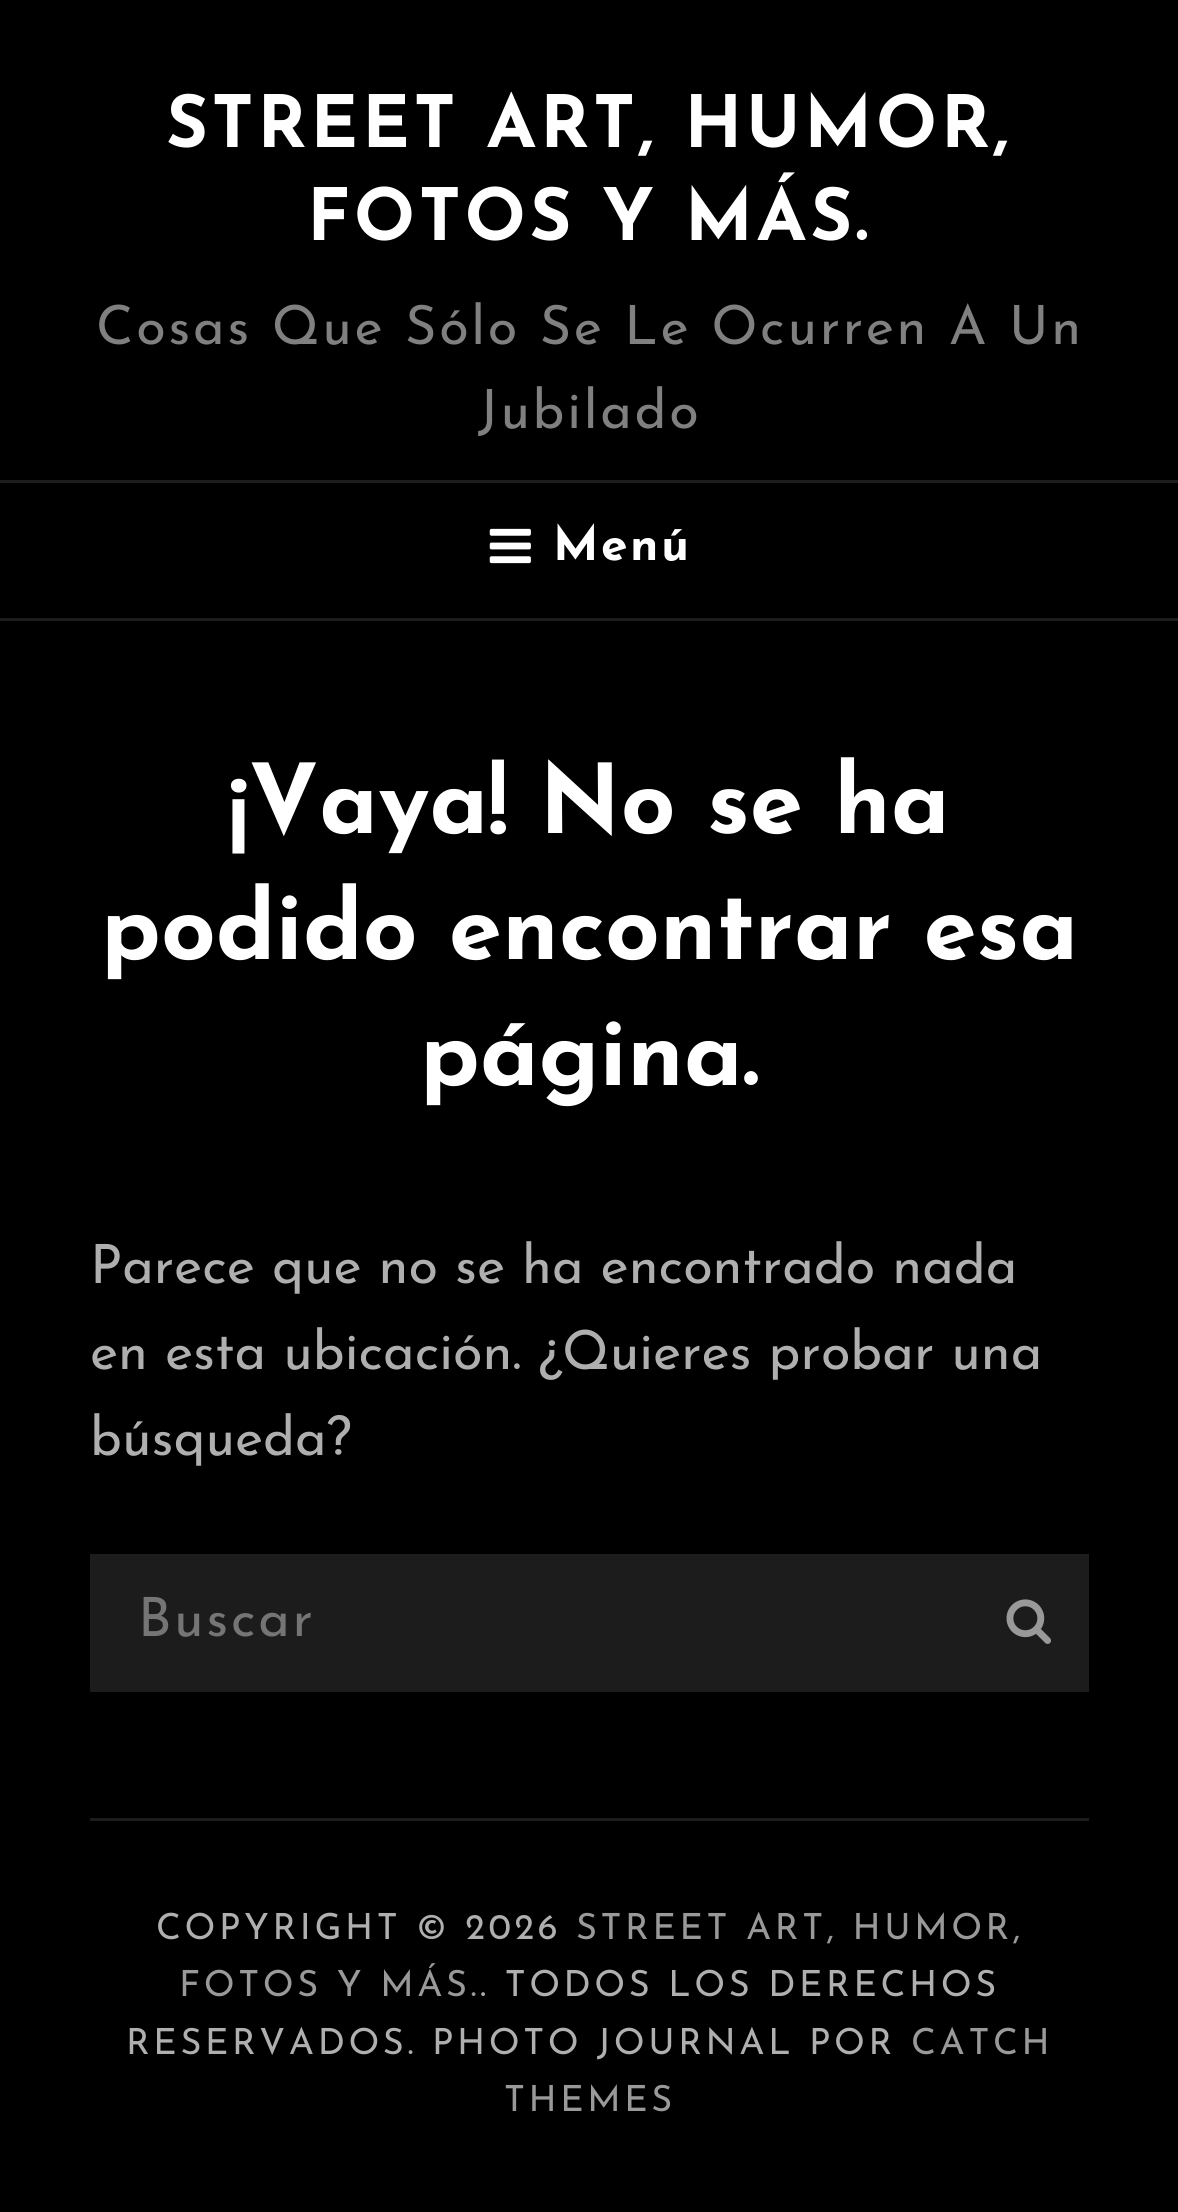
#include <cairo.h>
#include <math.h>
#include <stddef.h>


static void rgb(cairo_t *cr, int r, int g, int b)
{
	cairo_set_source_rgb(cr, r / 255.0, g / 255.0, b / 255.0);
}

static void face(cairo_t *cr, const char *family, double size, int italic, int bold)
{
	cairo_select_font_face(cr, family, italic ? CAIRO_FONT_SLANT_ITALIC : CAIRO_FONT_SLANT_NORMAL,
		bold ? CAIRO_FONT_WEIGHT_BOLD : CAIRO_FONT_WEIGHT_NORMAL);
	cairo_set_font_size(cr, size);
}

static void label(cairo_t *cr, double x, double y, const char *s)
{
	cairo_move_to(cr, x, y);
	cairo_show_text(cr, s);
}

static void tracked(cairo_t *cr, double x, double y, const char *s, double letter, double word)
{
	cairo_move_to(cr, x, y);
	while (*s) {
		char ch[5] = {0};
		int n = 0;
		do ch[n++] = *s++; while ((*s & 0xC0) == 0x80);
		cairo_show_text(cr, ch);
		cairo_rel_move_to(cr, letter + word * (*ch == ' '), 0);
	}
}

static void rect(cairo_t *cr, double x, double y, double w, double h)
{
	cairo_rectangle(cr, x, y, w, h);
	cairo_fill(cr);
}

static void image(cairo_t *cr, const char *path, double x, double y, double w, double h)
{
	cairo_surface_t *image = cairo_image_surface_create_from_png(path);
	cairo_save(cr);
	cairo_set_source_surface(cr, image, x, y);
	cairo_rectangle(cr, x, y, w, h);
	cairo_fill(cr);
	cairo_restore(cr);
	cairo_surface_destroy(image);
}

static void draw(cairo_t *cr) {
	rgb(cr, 0, 0, 0);
	cairo_paint(cr);
	face(cr, "Josefin Sans", 72, 0, 1);
	rgb(cr, 255, 255, 255);
	tracked(cr, 166, 147, "STREET ART, HUMOR,", 3.6, 0);
	tracked(cr, 307, 240, "FOTOS Y MÁS.", 3.6, 0);
	face(cr, "Josefin Sans", 54, 0, 0);
	rgb(cr, 128, 128, 128);
	tracked(cr, 96, 344, "Cosas Que Sólo Se Le Ocurren A Un", 2.7, 0);
	tracked(cr, 478, 428, "Jubilado", 2.7, 0);
	rgb(cr, 28, 28, 28);
	rect(cr, 0, 480, 1178, 3);
	rect(cr, 0, 618, 1178, 3);
	image(cr, "image0.png", 489, 528, 42, 36);
	face(cr, "Josefin Sans", 48, 0, 1);
	rgb(cr, 255, 255, 255);
	tracked(cr, 553, 560, "Menú", 2.5, 0);
	face(cr, "Josefin Sans", 96, 0, 1);
	label(cr, 229, 833, "¡Vaya! No se ha");
	label(cr, 101, 959, "podido encontrar esa");
	label(cr, 420, 1085, "página.");
	face(cr, "Josefin Sans", 54, 0, 0);
	rgb(cr, 175, 175, 175);
	label(cr, 90, 1283, "Parece que no se ha encontrado nada");
	label(cr, 90, 1369, "en esta ubicación. ¿Quieres probar una");
	label(cr, 90, 1455, "búsqueda?");
	rgb(cr, 28, 28, 28);
	rect(cr, 90, 1554, 999, 138);
	rgb(cr, 117, 117, 117);
	tracked(cr, 138, 1636, "Buscar", 2.7, 0);
	image(cr, "image1.png", 1006, 1599, 45, 45);
	rgb(cr, 28, 28, 28);
	rect(cr, 90, 1818, 999, 3);
	face(cr, "Josefin Sans", 36, 0, 0);
	rgb(cr, 175, 175, 175);
	tracked(cr, 156, 1939, "COPYRIGHT © 2026", 3.6, 0);
	rgb(cr, 153, 153, 153);
	tracked(cr, 576, 1939, "STREET ART, HUMOR,", 3.6, 0);
	tracked(cr, 179, 1996, "FOTOS Y MÁS.", 3.6, 0);
	rgb(cr, 175, 175, 175);
	tracked(cr, 480, 1996, ". TODOS LOS DERECHOS", 3.6, 0);
	tracked(cr, 126, 2054, "RESERVADOS. PHOTO JOURNAL POR", 3.6, 0);
	rgb(cr, 153, 153, 153);
	tracked(cr, 911, 2054, "CATCH", 3.6, 0);
	tracked(cr, 504, 2111, "THEMES", 3.6, 0);
}

int main(void) {
	cairo_surface_t *surface = cairo_image_surface_create(CAIRO_FORMAT_RGB24, 1178, 2212);
	cairo_t *cr = cairo_create(surface);
	cairo_font_options_t *options = cairo_font_options_create();
	cairo_font_options_set_hint_metrics(options, CAIRO_HINT_METRICS_OFF);
	cairo_font_options_set_hint_style(options, CAIRO_HINT_STYLE_NONE);
	cairo_set_font_options(cr, options);
	cairo_set_miter_limit(cr, 4);
	draw(cr);
	cairo_surface_write_to_png(surface, "render.png");
	cairo_font_options_destroy(options);
	cairo_destroy(cr);
	cairo_surface_destroy(surface);
	return 0;
}
